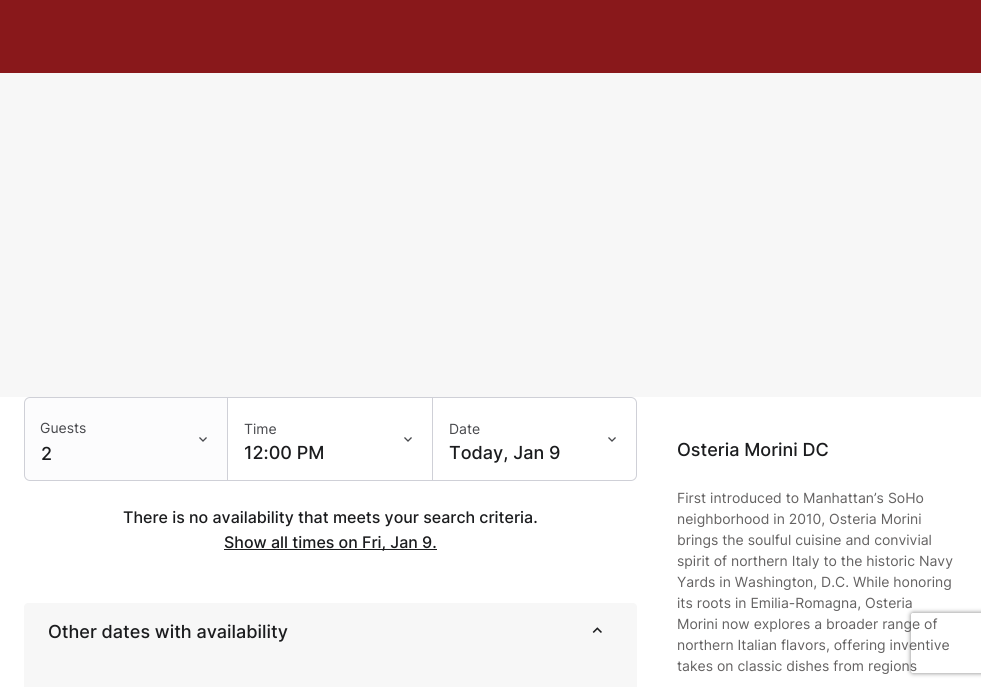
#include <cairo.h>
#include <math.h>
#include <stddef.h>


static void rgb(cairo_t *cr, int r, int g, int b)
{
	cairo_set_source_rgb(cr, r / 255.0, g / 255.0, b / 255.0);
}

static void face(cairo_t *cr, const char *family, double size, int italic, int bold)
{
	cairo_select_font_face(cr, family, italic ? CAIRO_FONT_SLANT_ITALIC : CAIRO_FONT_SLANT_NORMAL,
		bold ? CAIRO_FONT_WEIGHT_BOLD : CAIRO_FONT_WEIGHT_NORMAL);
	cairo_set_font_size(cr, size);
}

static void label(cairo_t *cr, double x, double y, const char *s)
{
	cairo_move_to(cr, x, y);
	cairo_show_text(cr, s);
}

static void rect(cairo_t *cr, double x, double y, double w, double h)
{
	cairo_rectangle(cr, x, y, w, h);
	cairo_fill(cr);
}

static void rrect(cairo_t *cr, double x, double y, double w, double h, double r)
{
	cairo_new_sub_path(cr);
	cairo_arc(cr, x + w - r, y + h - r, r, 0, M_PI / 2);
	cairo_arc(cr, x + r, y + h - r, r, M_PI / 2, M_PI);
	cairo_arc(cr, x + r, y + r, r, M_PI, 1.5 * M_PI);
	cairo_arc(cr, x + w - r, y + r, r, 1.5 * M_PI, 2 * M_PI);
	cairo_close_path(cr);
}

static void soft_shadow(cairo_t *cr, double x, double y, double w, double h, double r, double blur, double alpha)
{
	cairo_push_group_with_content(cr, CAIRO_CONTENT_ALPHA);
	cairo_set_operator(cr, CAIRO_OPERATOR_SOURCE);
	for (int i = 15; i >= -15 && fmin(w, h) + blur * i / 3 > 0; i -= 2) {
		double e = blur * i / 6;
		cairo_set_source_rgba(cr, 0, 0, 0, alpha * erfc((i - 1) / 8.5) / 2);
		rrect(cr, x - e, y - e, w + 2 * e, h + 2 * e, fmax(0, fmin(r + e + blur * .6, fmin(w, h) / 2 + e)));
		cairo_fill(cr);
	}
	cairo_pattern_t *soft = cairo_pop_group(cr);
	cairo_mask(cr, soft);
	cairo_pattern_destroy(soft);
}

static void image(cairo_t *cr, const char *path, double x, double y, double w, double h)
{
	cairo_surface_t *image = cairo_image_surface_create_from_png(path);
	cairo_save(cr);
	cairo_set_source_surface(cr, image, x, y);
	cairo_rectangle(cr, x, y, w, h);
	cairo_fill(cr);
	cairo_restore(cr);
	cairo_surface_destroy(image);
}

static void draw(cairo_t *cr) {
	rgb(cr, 247, 247, 247);
	cairo_paint(cr);
	rgb(cr, 137, 24, 27);
	rect(cr, 0, 0, 981, 73);
	rgb(cr, 255, 255, 255);
	rect(cr, 0, 397, 981, 290);
	cairo_rectangle(cr, 227.5, 397.5, 205, 83);
	rgb(cr, 207, 208, 215);
	cairo_set_line_width(cr, 1);
	cairo_stroke(cr);
	rgb(cr, 252, 252, 253);
	cairo_new_path(cr);
	cairo_move_to(cr, 30, 397.5);
	cairo_line_to(cr, 227.5, 397.5);
	cairo_line_to(cr, 227.5, 480.5);
	cairo_line_to(cr, 30, 480.5);
	cairo_curve_to(cr, 27, 480.5, 24.5, 478, 24.5, 475);
	cairo_line_to(cr, 24.5, 403);
	cairo_curve_to(cr, 24.5, 400, 27, 397.5, 30, 397.5);
	cairo_close_path(cr);
	cairo_fill_preserve(cr);
	rgb(cr, 207, 208, 215);
	cairo_stroke(cr);
	face(cr, "Inter", 14, 0, 0);
	rgb(cr, 71, 72, 76);
	label(cr, 40, 433, "Guests");
	image(cr, "image0.png", 199, 437, 8, 5);
	face(cr, "Inter Medium", 18, 0, 0);
	rgb(cr, 27, 28, 30);
	label(cr, 41, 460, "2");
	face(cr, "Inter", 14, 0, 0);
	rgb(cr, 71, 72, 76);
	label(cr, 244, 434, "Time");
	face(cr, "Inter Medium", 18, 0, 0);
	rgb(cr, 27, 28, 30);
	label(cr, 244, 459, "12:00 PM");
	image(cr, "image1.png", 404, 437, 8, 5);
	rgb(cr, 255, 255, 255);
	cairo_new_path(cr);
	cairo_move_to(cr, 432.5, 397.5);
	cairo_line_to(cr, 631, 397.5);
	cairo_curve_to(cr, 634, 397.5, 636.5, 400, 636.5, 403);
	cairo_line_to(cr, 636.5, 475);
	cairo_curve_to(cr, 636.5, 478, 634, 480.5, 631, 480.5);
	cairo_line_to(cr, 432.5, 480.5);
	cairo_close_path(cr);
	cairo_fill_preserve(cr);
	rgb(cr, 207, 208, 215);
	cairo_stroke(cr);
	face(cr, "Inter", 14, 0, 0);
	rgb(cr, 71, 72, 76);
	label(cr, 449, 434, "Date");
	face(cr, "Inter Medium", 18, 0, 0);
	rgb(cr, 27, 28, 30);
	label(cr, 449, 459, "Today, Jan 9");
	image(cr, "image1.png", 608, 437, 8, 5);
	face(cr, "Inter Medium", 16, 0, 0);
	label(cr, 123, 523, "There is no availability that meets your search criteria.");
	rect(cr, 224, 549, 213, 1);
	label(cr, 224, 548, "Show all times on Fri, Jan 9.");
	rgb(cr, 247, 247, 247);
	rrect(cr, 24, 603, 613, 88, 4);
	cairo_fill(cr);
	face(cr, "Inter Medium", 18, 0, 0);
	rgb(cr, 27, 28, 30);
	label(cr, 48, 638, "Other dates with availability");
	image(cr, "image2.png", 592, 627, 10, 6);
	label(cr, 677, 456, "Osteria Morini DC");
	face(cr, "Inter", 14, 0, 0);
	rgb(cr, 100, 98, 98);
	label(cr, 677, 503, "First introduced to Manhattan’s SoHo");
	label(cr, 677, 524, "neighborhood in 2010, Osteria Morini");
	label(cr, 677, 545, "brings the soulful cuisine and convivial");
	label(cr, 677, 566, "spirit of northern Italy to the historic Navy");
	label(cr, 677, 587, "Yards in Washington, D.C. While honoring");
	cairo_save(cr);
	cairo_set_fill_rule(cr, CAIRO_FILL_RULE_EVEN_ODD);
	cairo_new_path(cr);
	cairo_move_to(cr, 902, 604);
	cairo_line_to(cr, 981, 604);
	cairo_line_to(cr, 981, 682);
	cairo_line_to(cr, 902, 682);
	cairo_close_path(cr);
	cairo_move_to(cr, 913, 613);
	cairo_line_to(cr, 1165, 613);
	cairo_curve_to(cr, 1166, 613, 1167, 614, 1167, 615);
	cairo_line_to(cr, 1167, 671);
	cairo_curve_to(cr, 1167, 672, 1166, 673, 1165, 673);
	cairo_line_to(cr, 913, 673);
	cairo_curve_to(cr, 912, 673, 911, 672, 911, 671);
	cairo_line_to(cr, 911, 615);
	cairo_curve_to(cr, 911, 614, 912, 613, 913, 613);
	cairo_close_path(cr);
	cairo_clip(cr);
	rgb(cr, 128, 128, 128);
	soft_shadow(cr, 911, 613, 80, 60, 2, 2.5, 1);
	cairo_restore(cr);
	label(cr, 677, 608, "its roots in Emilia-Romagna, Osteria");
	label(cr, 677, 629, "Morini now explores a broader range of");
	label(cr, 677, 650, "northern Italian flavors, offering inventive");
	label(cr, 677, 671, "takes on classic dishes from regions");
}

int main(void) {
	cairo_surface_t *surface = cairo_image_surface_create(CAIRO_FORMAT_RGB24, 981, 687);
	cairo_t *cr = cairo_create(surface);
	cairo_font_options_t *options = cairo_font_options_create();
	cairo_font_options_set_hint_metrics(options, CAIRO_HINT_METRICS_OFF);
	cairo_font_options_set_hint_style(options, CAIRO_HINT_STYLE_NONE);
	cairo_set_font_options(cr, options);
	cairo_set_miter_limit(cr, 4);
	draw(cr);
	cairo_surface_write_to_png(surface, "render.png");
	cairo_font_options_destroy(options);
	cairo_destroy(cr);
	cairo_surface_destroy(surface);
	return 0;
}
